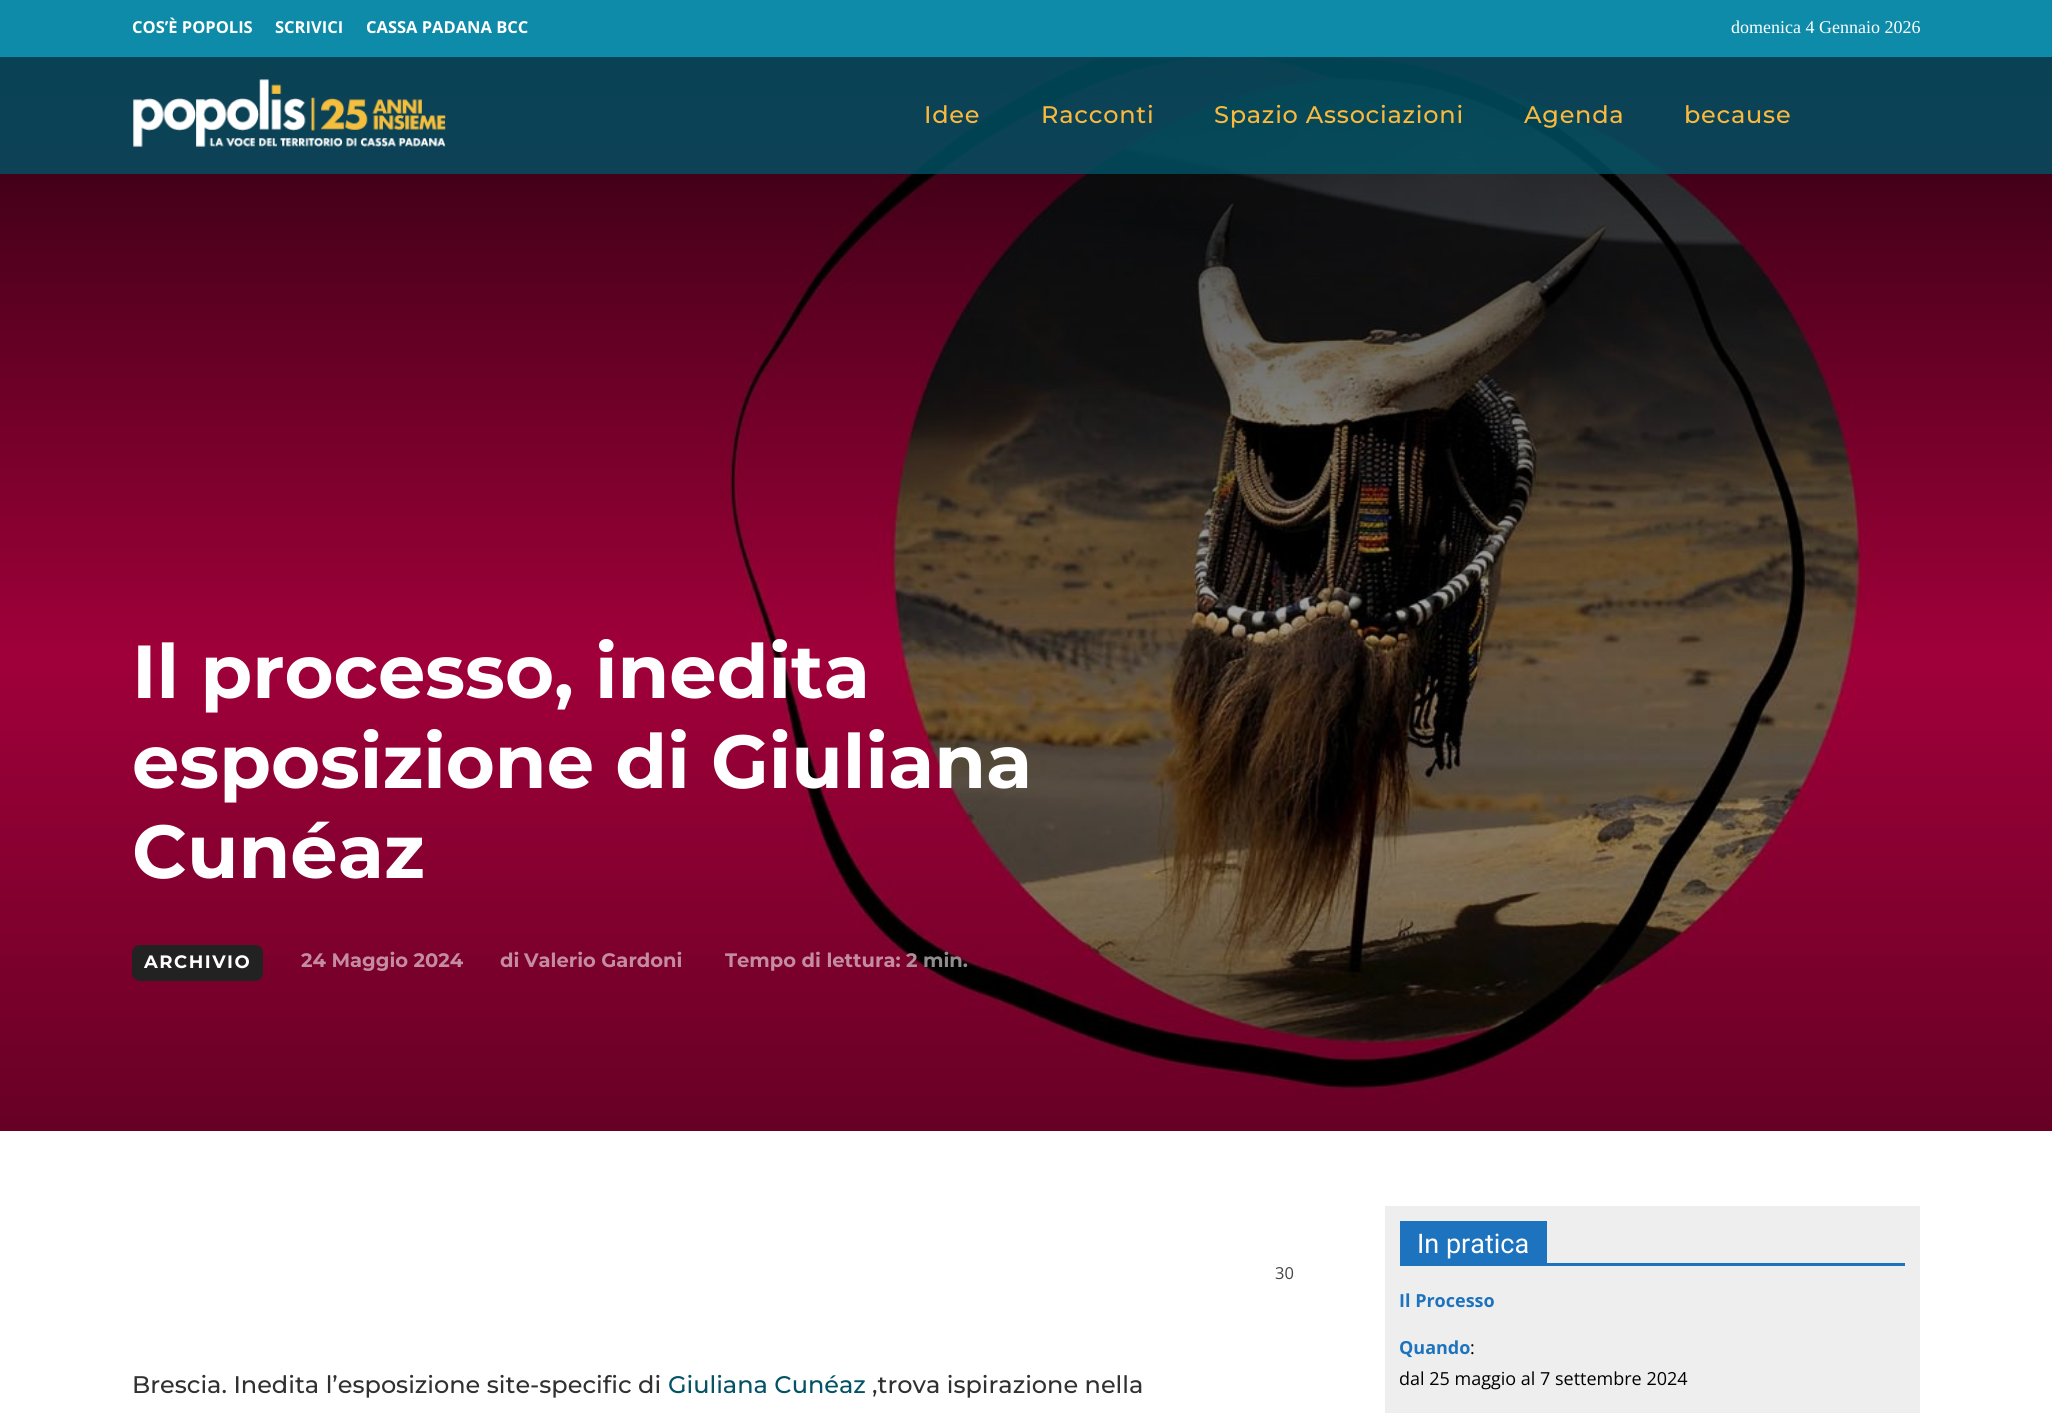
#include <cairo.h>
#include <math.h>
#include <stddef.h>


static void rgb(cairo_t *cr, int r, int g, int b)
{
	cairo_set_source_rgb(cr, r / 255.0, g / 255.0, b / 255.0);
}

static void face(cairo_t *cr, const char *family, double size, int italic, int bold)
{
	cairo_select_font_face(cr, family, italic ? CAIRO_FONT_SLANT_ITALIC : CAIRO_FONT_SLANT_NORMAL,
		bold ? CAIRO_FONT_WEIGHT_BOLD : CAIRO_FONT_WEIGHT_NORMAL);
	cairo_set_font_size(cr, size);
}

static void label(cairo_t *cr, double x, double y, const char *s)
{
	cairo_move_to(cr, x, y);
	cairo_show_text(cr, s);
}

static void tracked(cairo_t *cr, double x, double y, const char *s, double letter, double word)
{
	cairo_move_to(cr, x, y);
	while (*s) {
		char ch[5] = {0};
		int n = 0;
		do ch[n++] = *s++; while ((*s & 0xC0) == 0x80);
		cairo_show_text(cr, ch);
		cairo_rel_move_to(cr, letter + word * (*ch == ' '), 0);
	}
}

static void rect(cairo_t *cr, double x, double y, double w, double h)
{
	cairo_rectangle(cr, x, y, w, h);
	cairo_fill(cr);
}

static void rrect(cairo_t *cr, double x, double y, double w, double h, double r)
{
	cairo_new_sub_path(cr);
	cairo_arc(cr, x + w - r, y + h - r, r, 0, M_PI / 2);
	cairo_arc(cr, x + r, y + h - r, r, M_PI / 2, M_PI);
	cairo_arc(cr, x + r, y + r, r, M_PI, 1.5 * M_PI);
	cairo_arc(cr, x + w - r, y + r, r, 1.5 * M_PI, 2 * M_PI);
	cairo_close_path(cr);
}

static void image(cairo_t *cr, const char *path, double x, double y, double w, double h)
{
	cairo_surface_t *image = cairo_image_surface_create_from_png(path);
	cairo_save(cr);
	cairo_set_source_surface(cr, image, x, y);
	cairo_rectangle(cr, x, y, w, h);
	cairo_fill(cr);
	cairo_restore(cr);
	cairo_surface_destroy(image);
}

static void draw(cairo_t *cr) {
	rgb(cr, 255, 255, 255);
	cairo_paint(cr);
	rgb(cr, 13, 139, 168);
	rect(cr, 0, 0, 2052, 57);
	face(cr, "Open Sans", 16.5, 0, 1);
	rgb(cr, 255, 255, 255);
	label(cr, 132, 33, "COS’È POPOLIS");
	label(cr, 275, 33, "SCRIVICI");
	label(cr, 366, 33, "CASSA PADANA BCC");
	face(cr, "Liberation Serif", 18, 0, 0);
	label(cr, 1731, 33, "domenica 4 Gennaio 2026");
	image(cr, "image1.png", 0, 57, 2052, 1074);
	cairo_set_source_rgba(cr, 0, 0.325, 0.4, 0.8);
	rect(cr, 0, 57, 2052, 117);
	image(cr, "image0.png", 133, 79, 313, 68);
	face(cr, "Montserrat Thin", 24, 0, 0);
	rgb(cr, 249, 185, 62);
	tracked(cr, 924, 123, "Idee", 0.75, 0);
	tracked(cr, 1041, 123, "Racconti", 0.75, 0);
	tracked(cr, 1214, 123, "Spazio Associazioni", 0.75, 0);
	tracked(cr, 1524, 123, "Agenda", 0.75, 0);
	tracked(cr, 1684, 123, "because", 0.75, 0);
	face(cr, "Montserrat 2 Thin", 75, 0, 0);
	rgb(cr, 255, 255, 255);
	label(cr, 132, 698, "Il processo, inedita");
	label(cr, 132, 788, "esposizione di Giuliana");
	label(cr, 132, 878, "Cunéaz");
	rgb(cr, 34, 34, 34);
	rrect(cr, 132, 945, 131, 36, 8);
	cairo_fill(cr);
	face(cr, "Montserrat 2 Thin", 18, 0, 0);
	rgb(cr, 255, 255, 255);
	tracked(cr, 144, 968, "ARCHIVIO", 1.5, 0);
	face(cr, "Montserrat 2 Thin", 19.5, 0, 0);
	rgb(cr, 196, 140, 160);
	label(cr, 301, 967, "24 Maggio 2024");
	label(cr, 500, 967, "di");
	label(cr, 524, 967, "Valerio Gardoni");
	label(cr, 725, 967, "Tempo di lettura:");
	rgb(cr, 179, 141, 154);
	label(cr, 906, 967, "2");
	rgb(cr, 145, 141, 142);
	label(cr, 923, 967, "min.");
	face(cr, "Open Sans", 16.5, 0, 0);
	rgb(cr, 68, 68, 68);
	label(cr, 1275, 1279, "30");
	face(cr, "Montserrat Thin", 24, 0, 0);
	rgb(cr, 49, 49, 49);
	label(cr, 132, 1393, "Brescia. Inedita l’esposizione site-specific di");
	rgb(cr, 3, 83, 100);
	label(cr, 668, 1393, "Giuliana Cunéaz");
	rgb(cr, 49, 49, 49);
	label(cr, 872, 1393, ",trova ispirazione nella");
	rgb(cr, 238, 238, 238);
	rect(cr, 1385, 1206, 535, 207);
	rgb(cr, 30, 115, 190);
	rect(cr, 1400, 1263, 505, 3);
	rect(cr, 1400, 1221, 147, 42);
	face(cr, "Roboto", 27, 0, 0);
	rgb(cr, 255, 255, 255);
	label(cr, 1417, 1253, "In pratica");
	face(cr, "Open Sans", 18, 0, 1);
	rgb(cr, 30, 115, 190);
	label(cr, 1399, 1307, "Il Processo");
	label(cr, 1399, 1354, "Quando");
	face(cr, "Open Sans", 18, 0, 0);
	rgb(cr, 0, 0, 0);
	label(cr, 1470, 1354, ":");
	label(cr, 1399, 1385, "dal 25 maggio al 7 settembre 2024");
}

int main(void) {
	cairo_surface_t *surface = cairo_image_surface_create(CAIRO_FORMAT_RGB24, 2052, 1413);
	cairo_t *cr = cairo_create(surface);
	cairo_font_options_t *options = cairo_font_options_create();
	cairo_font_options_set_hint_metrics(options, CAIRO_HINT_METRICS_OFF);
	cairo_font_options_set_hint_style(options, CAIRO_HINT_STYLE_NONE);
	cairo_set_font_options(cr, options);
	cairo_set_miter_limit(cr, 4);
	draw(cr);
	cairo_surface_write_to_png(surface, "render.png");
	cairo_font_options_destroy(options);
	cairo_destroy(cr);
	cairo_surface_destroy(surface);
	return 0;
}
